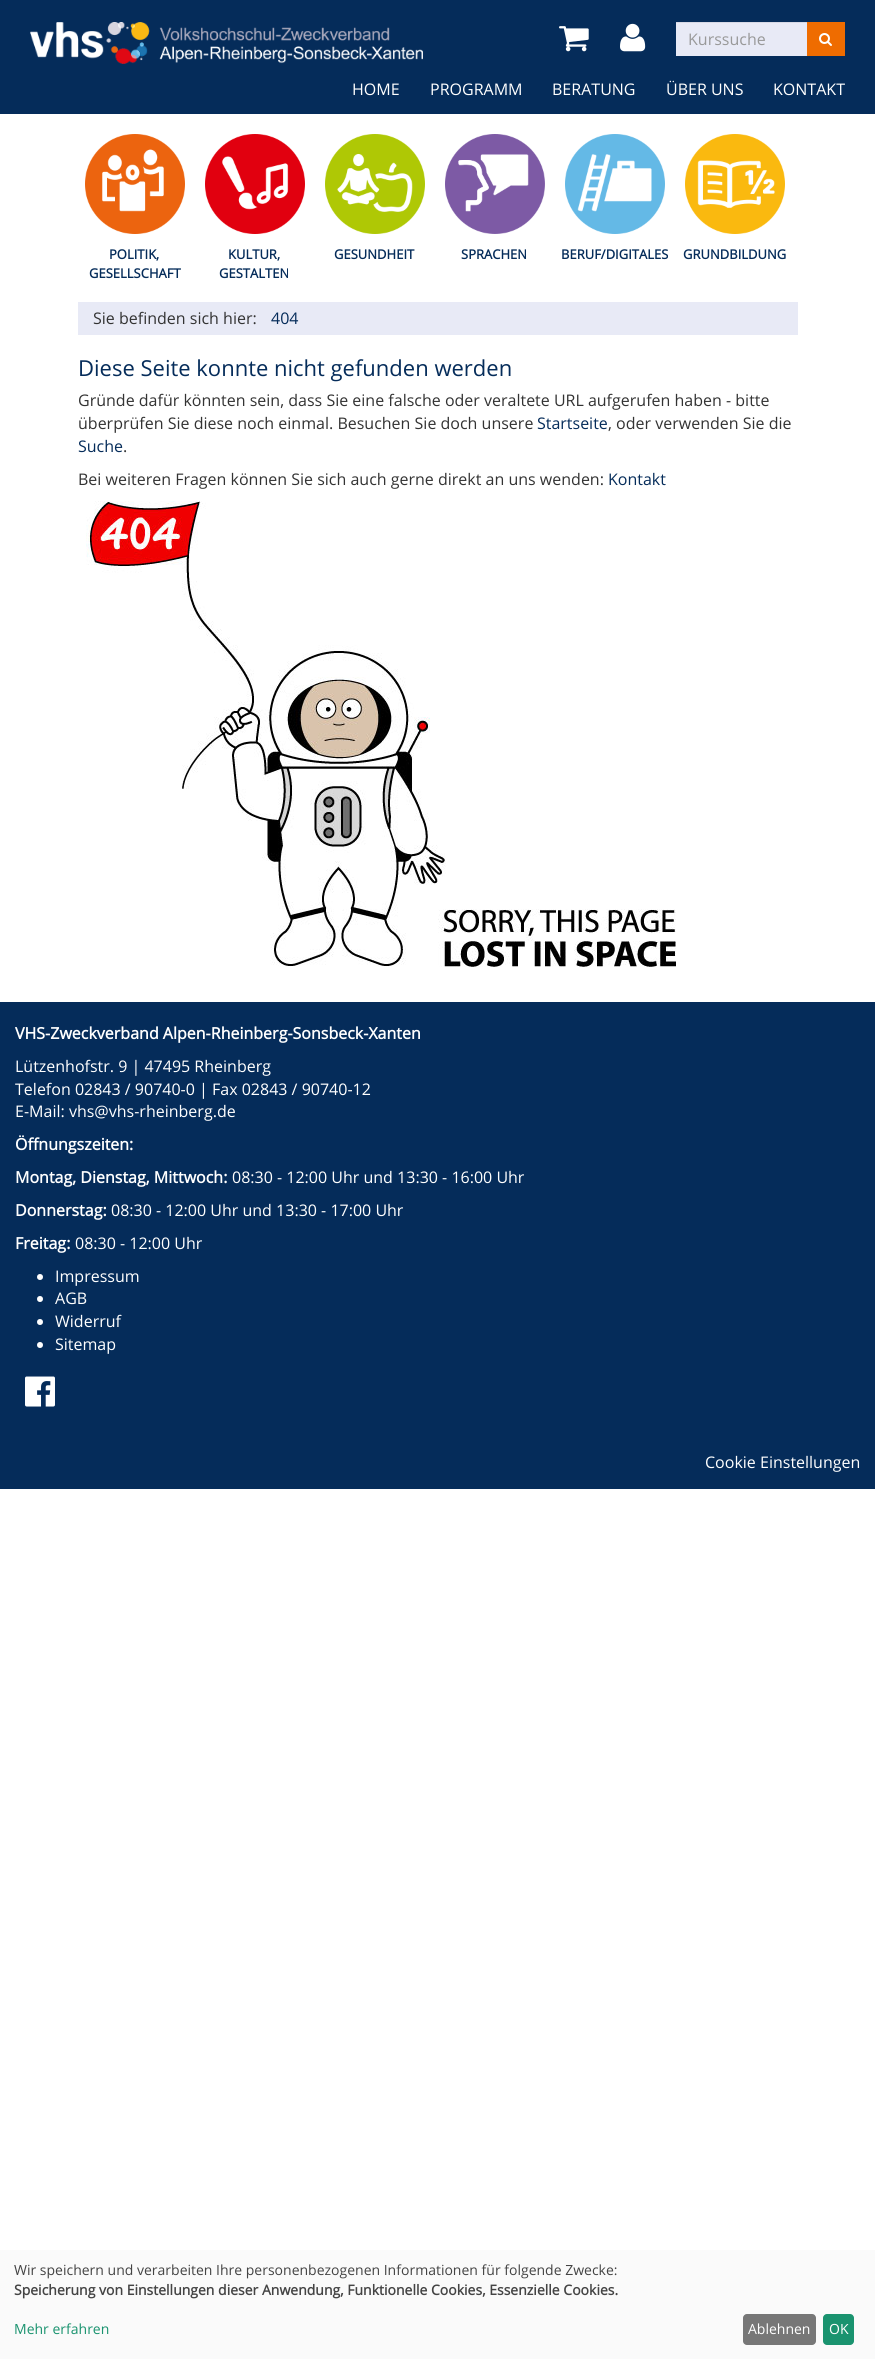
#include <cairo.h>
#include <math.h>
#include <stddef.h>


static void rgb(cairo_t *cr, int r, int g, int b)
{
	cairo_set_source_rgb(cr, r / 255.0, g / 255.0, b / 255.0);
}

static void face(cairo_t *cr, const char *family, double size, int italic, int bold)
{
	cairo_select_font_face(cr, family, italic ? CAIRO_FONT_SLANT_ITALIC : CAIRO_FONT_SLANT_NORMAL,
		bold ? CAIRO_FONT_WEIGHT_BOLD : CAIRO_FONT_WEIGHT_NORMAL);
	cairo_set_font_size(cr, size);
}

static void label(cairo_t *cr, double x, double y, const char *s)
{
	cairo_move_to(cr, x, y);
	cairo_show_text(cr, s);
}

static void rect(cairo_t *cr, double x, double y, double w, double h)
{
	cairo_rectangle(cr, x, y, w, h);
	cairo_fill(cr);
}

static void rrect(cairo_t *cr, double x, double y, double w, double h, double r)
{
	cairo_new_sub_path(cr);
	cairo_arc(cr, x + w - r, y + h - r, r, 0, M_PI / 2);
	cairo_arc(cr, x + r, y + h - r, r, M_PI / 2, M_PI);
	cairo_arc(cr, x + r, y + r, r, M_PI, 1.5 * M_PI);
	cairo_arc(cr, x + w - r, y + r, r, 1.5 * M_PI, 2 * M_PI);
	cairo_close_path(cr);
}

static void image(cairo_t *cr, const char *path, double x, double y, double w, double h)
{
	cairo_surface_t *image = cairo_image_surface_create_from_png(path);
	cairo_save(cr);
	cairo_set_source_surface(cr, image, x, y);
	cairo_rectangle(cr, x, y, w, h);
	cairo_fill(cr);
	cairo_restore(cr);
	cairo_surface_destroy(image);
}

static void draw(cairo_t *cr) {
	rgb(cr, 255, 255, 255);
	cairo_paint(cr);
	rgb(cr, 5, 44, 90);
	rect(cr, 0, 0, 875, 114);
	image(cr, "image0.png", 30, 22, 393, 42);
	image(cr, "image1.png", 559, 26, 30, 26);
	image(cr, "image2.png", 620, 23, 26, 29);
	rgb(cr, 232, 234, 246);
	rect(cr, 676, 23, 131, 33);
	rgb(cr, 215, 216, 228);
	rect(cr, 676, 22, 131, 1);
	face(cr, "Open Sans", 16, 0, 0);
	rgb(cr, 153, 153, 153);
	label(cr, 688, 45, "Kurssuche");
	rgb(cr, 239, 108, 0);
	rect(cr, 807, 22, 38, 34);
	image(cr, "image3.png", 819, 33, 13, 13);
	rgb(cr, 255, 255, 255);
	label(cr, 352, 95, "HOME");
	label(cr, 430, 95, "PROGRAMM");
	label(cr, 552, 95, "BERATUNG");
	label(cr, 666, 95, "ÜBER UNS");
	label(cr, 773, 95, "KONTAKT");
	image(cr, "image4.png", 85, 134, 100, 100);
	face(cr, "Open Sans", 13, 0, 1);
	rgb(cr, 5, 44, 90);
	label(cr, 109, 259, "POLITIK,");
	label(cr, 89, 278, "GESELLSCHAFT");
	image(cr, "image5.png", 205, 134, 100, 100);
	label(cr, 228, 259, "KULTUR,");
	label(cr, 219, 278, "GESTALTEN");
	image(cr, "image6.png", 325, 134, 100, 100);
	label(cr, 334, 259, "GESUNDHEIT");
	image(cr, "image7.png", 445, 134, 100, 100);
	label(cr, 461, 259, "SPRACHEN");
	image(cr, "image8.png", 565, 134, 100, 100);
	label(cr, 561, 259, "BERUF/DIGITALES");
	image(cr, "image9.png", 685, 134, 100, 100);
	label(cr, 683, 259, "GRUNDBILDUNG");
	rgb(cr, 232, 234, 246);
	rect(cr, 78, 302, 720, 33);
	face(cr, "Open Sans", 16, 0, 0);
	rgb(cr, 51, 51, 51);
	label(cr, 93, 324, "Sie befinden sich hier:");
	rgb(cr, 5, 44, 90);
	label(cr, 271, 324, "404");
	face(cr, "Open Sans", 22, 0, 0);
	label(cr, 78, 376, "Diese Seite konnte nicht gefunden werden");
	face(cr, "Open Sans", 16, 0, 0);
	rgb(cr, 51, 51, 51);
	label(cr, 78, 406, "Gründe dafür könnten sein, dass Sie eine falsche oder veraltete URL aufgerufen haben - bitte");
	label(cr, 78, 429, "überprüfen Sie diese noch einmal. Besuchen Sie doch unsere");
	rgb(cr, 5, 44, 90);
	label(cr, 537, 429, "Startseite");
	rgb(cr, 51, 51, 51);
	label(cr, 608, 429, ", oder verwenden Sie die");
	rgb(cr, 5, 44, 90);
	label(cr, 78, 452, "Suche");
	rgb(cr, 51, 51, 51);
	label(cr, 123, 452, ".");
	label(cr, 78, 485, "Bei weiteren Fragen können Sie sich auch gerne direkt an uns wenden:");
	rgb(cr, 5, 44, 90);
	label(cr, 608, 485, "Kontakt");
	image(cr, "image10.png", 86, 501, 590, 466);
	rect(cr, 0, 1002, 875, 487);
	face(cr, "Open Sans", 16, 0, 1);
	rgb(cr, 255, 255, 255);
	label(cr, 15, 1039, "VHS-Zweckverband Alpen-Rheinberg-Sonsbeck-Xanten");
	face(cr, "Open Sans", 16, 0, 0);
	label(cr, 15, 1072, "Lützenhofstr. 9 | 47495 Rheinberg");
	label(cr, 15, 1095, "Telefon 02843 / 90740-0 | Fax 02843 / 90740-12");
	label(cr, 15, 1117, "E-Mail: vhs@vhs-rheinberg.de");
	face(cr, "Open Sans", 16, 0, 1);
	label(cr, 15, 1150, "Öffnungszeiten:");
	label(cr, 15, 1183, "Montag, Dienstag, Mittwoch:");
	face(cr, "Open Sans", 16, 0, 0);
	label(cr, 232, 1183, "08:30 - 12:00 Uhr und 13:30 - 16:00 Uhr");
	face(cr, "Open Sans", 16, 0, 1);
	label(cr, 15, 1216, "Donnerstag:");
	face(cr, "Open Sans", 16, 0, 0);
	label(cr, 111, 1216, "08:30 - 12:00 Uhr und 13:30 - 17:00 Uhr");
	face(cr, "Open Sans", 16, 0, 1);
	label(cr, 15, 1249, "Freitag:");
	face(cr, "Open Sans", 16, 0, 0);
	label(cr, 75, 1249, "08:30 - 12:00 Uhr");
	cairo_new_path(cr);
	cairo_arc(cr, 40, 1277, 3, 0, 2 * M_PI);
	cairo_fill(cr);
	label(cr, 55, 1282, "Impressum");
	cairo_new_path(cr);
	cairo_arc(cr, 40, 1299, 3, 0, 2 * M_PI);
	cairo_fill(cr);
	label(cr, 55, 1304, "AGB");
	cairo_new_path(cr);
	cairo_arc(cr, 40, 1322, 3, 0, 2 * M_PI);
	cairo_fill(cr);
	label(cr, 55, 1327, "Widerruf");
	cairo_new_path(cr);
	cairo_arc(cr, 40, 1345, 3, 0, 2 * M_PI);
	cairo_fill(cr);
	label(cr, 55, 1350, "Sitemap");
	image(cr, "image11.png", 25, 1376, 30, 31);
	label(cr, 705, 1468, "Cookie Einstellungen");
	rgb(cr, 250, 250, 250);
	rect(cr, 0, 2250, 875, 109);
	face(cr, "Open Sans", 14, 0, 0);
	rgb(cr, 68, 68, 68);
	label(cr, 14, 2275, "Wir speichern und verarbeiten Ihre personenbezogenen Informationen für folgende Zwecke:");
	face(cr, "Open Sans", 14, 0, 1);
	label(cr, 14, 2295, "Speicherung von Einstellungen dieser Anwendung, Funktionelle Cookies, Essenzielle Cookies.");
	face(cr, "Open Sans", 14, 0, 0);
	rgb(cr, 26, 147, 111);
	label(cr, 14, 2334, "Mehr erfahren");
	rgb(cr, 119, 119, 119);
	rrect(cr, 743, 2314, 73, 31, 4);
	cairo_fill(cr);
	rgb(cr, 255, 255, 255);
	label(cr, 748, 2334, "Ablehnen");
	rgb(cr, 26, 147, 111);
	rrect(cr, 823, 2314, 31, 31, 4);
	cairo_fill(cr);
	rgb(cr, 255, 255, 255);
	label(cr, 829, 2334, "OK");
}

int main(void) {
	cairo_surface_t *surface = cairo_image_surface_create(CAIRO_FORMAT_RGB24, 875, 2359);
	cairo_t *cr = cairo_create(surface);
	cairo_font_options_t *options = cairo_font_options_create();
	cairo_font_options_set_hint_metrics(options, CAIRO_HINT_METRICS_OFF);
	cairo_font_options_set_hint_style(options, CAIRO_HINT_STYLE_NONE);
	cairo_set_font_options(cr, options);
	cairo_set_miter_limit(cr, 4);
	draw(cr);
	cairo_surface_write_to_png(surface, "render.png");
	cairo_font_options_destroy(options);
	cairo_destroy(cr);
	cairo_surface_destroy(surface);
	return 0;
}
